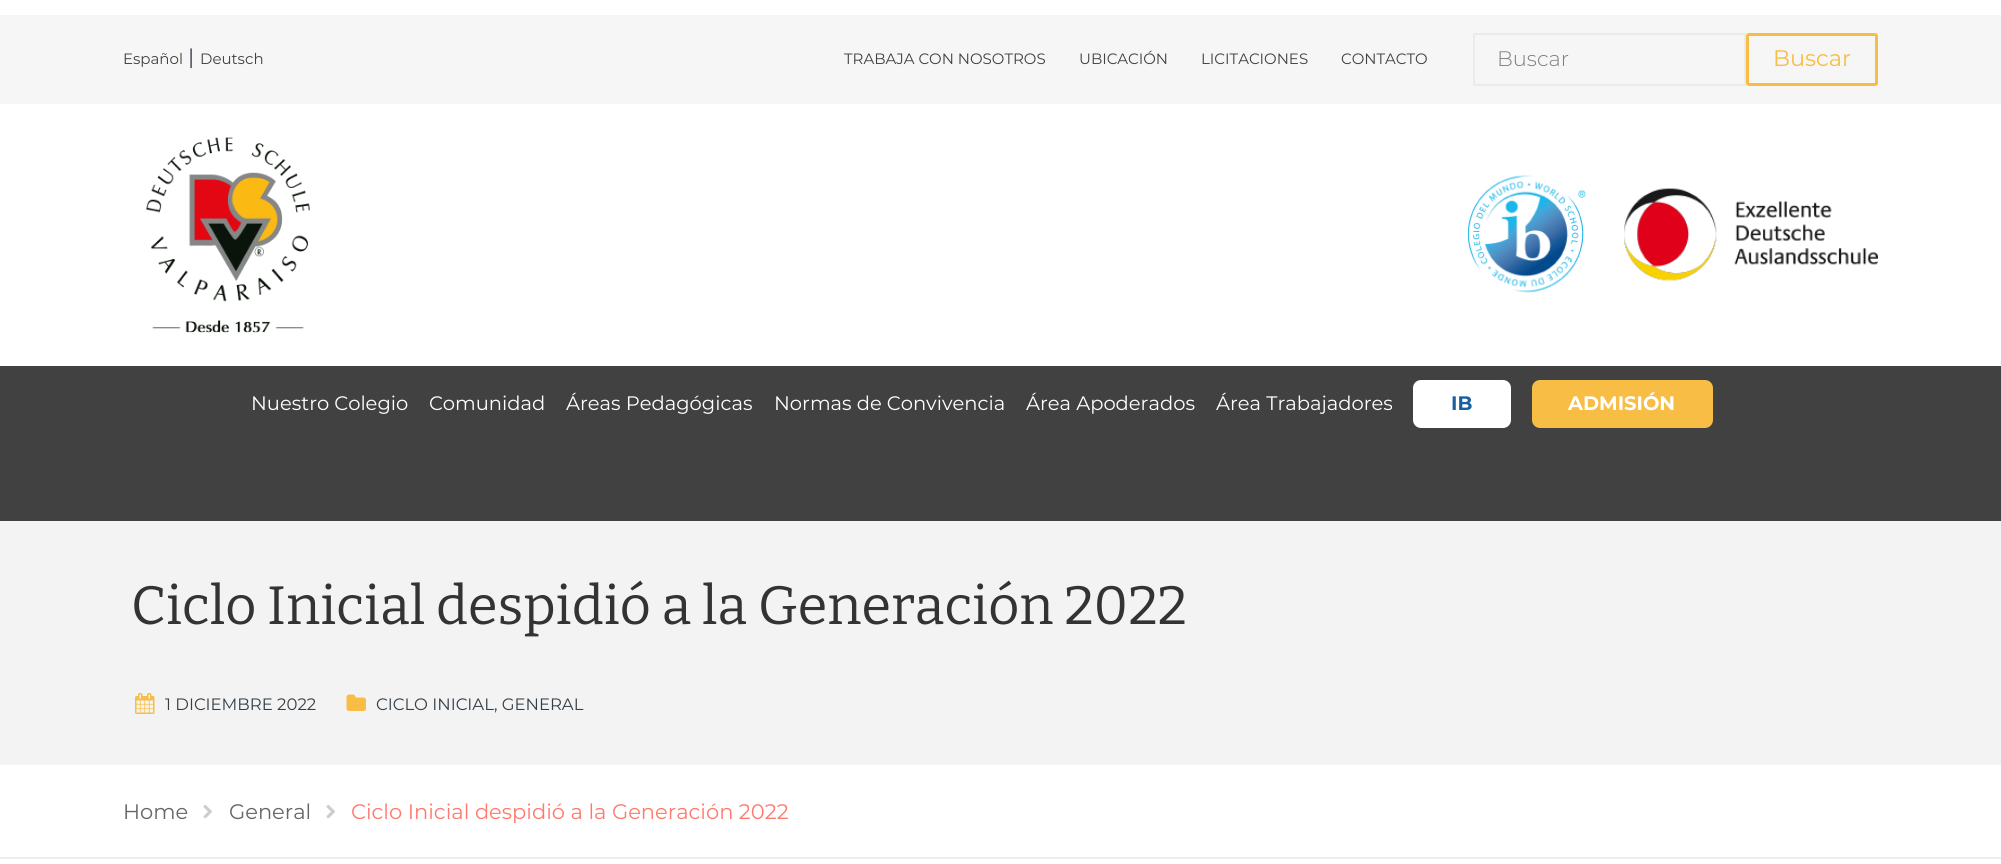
#include <cairo.h>
#include <math.h>
#include <stddef.h>


static void rgb(cairo_t *cr, int r, int g, int b)
{
	cairo_set_source_rgb(cr, r / 255.0, g / 255.0, b / 255.0);
}

static void face(cairo_t *cr, const char *family, double size, int italic, int bold)
{
	cairo_select_font_face(cr, family, italic ? CAIRO_FONT_SLANT_ITALIC : CAIRO_FONT_SLANT_NORMAL,
		bold ? CAIRO_FONT_WEIGHT_BOLD : CAIRO_FONT_WEIGHT_NORMAL);
	cairo_set_font_size(cr, size);
}

static void label(cairo_t *cr, double x, double y, const char *s)
{
	cairo_move_to(cr, x, y);
	cairo_show_text(cr, s);
}

static void rect(cairo_t *cr, double x, double y, double w, double h)
{
	cairo_rectangle(cr, x, y, w, h);
	cairo_fill(cr);
}

static void rrect(cairo_t *cr, double x, double y, double w, double h, double r)
{
	cairo_new_sub_path(cr);
	cairo_arc(cr, x + w - r, y + h - r, r, 0, M_PI / 2);
	cairo_arc(cr, x + r, y + h - r, r, M_PI / 2, M_PI);
	cairo_arc(cr, x + r, y + r, r, M_PI, 1.5 * M_PI);
	cairo_arc(cr, x + w - r, y + r, r, 1.5 * M_PI, 2 * M_PI);
	cairo_close_path(cr);
}

static void image(cairo_t *cr, const char *path, double x, double y, double w, double h)
{
	cairo_surface_t *image = cairo_image_surface_create_from_png(path);
	cairo_save(cr);
	cairo_set_source_surface(cr, image, x, y);
	cairo_rectangle(cr, x, y, w, h);
	cairo_fill(cr);
	cairo_restore(cr);
	cairo_surface_destroy(image);
}

static void draw(cairo_t *cr) {
	rgb(cr, 255, 255, 255);
	cairo_paint(cr);
	rgb(cr, 246, 246, 246);
	rect(cr, 0, 15, 2001, 89);
	face(cr, "Montserrat", 15, 0, 0);
	rgb(cr, 65, 65, 65);
	label(cr, 123, 64, "Español");
	face(cr, "Montserrat", 21, 0, 0);
	rgb(cr, 52, 62, 71);
	label(cr, 188, 64, "|");
	face(cr, "Montserrat", 15, 0, 0);
	rgb(cr, 65, 65, 65);
	label(cr, 200, 64, "Deutsch");
	label(cr, 844, 64, "TRABAJA CON NOSOTROS");
	label(cr, 1079, 64, "UBICACIÓN");
	label(cr, 1201, 64, "LICITACIONES");
	label(cr, 1341, 64, "CONTACTO");
	cairo_rectangle(cr, 1474, 34, 271, 51);
	rgb(cr, 235, 235, 235);
	cairo_stroke(cr);
	face(cr, "Montserrat Light", 21, 0, 0);
	rgb(cr, 123, 128, 133);
	label(cr, 1497, 66, "Buscar");
	rrect(cr, 1747.5, 34.5, 129, 50, 1.5);
	rgb(cr, 247, 189, 69);
	cairo_set_line_width(cr, 3);
	cairo_stroke(cr);
	face(cr, "Montserrat", 22.5, 0, 0);
	label(cr, 1773, 66, "Buscar");
	image(cr, "image0.png", 146, 137, 164, 196);
	image(cr, "image1.png", 1467, 175, 119, 118);
	image(cr, "image2.png", 1624, 188, 254, 93);
	rgb(cr, 65, 65, 65);
	rect(cr, 0, 366, 2001, 155);
	face(cr, "Montserrat", 19.5, 0, 0);
	rgb(cr, 255, 255, 255);
	label(cr, 251, 410, "Nuestro Colegio");
	label(cr, 429, 410, "Comunidad");
	label(cr, 566, 410, "Áreas Pedagógicas");
	label(cr, 774, 410, "Normas de Convivencia");
	label(cr, 1026, 410, "Área Apoderados");
	label(cr, 1216, 410, "Área Trabajadores");
	rrect(cr, 1413, 380, 98, 48, 8);
	cairo_fill(cr);
	face(cr, "Montserrat", 19.5, 0, 1);
	rgb(cr, 26, 94, 159);
	label(cr, 1451, 410, "IB");
	rgb(cr, 247, 189, 69);
	rrect(cr, 1532, 380, 181, 48, 8);
	cairo_fill(cr);
	rgb(cr, 255, 255, 255);
	label(cr, 1568, 410, "ADMISIÓN");
	rgb(cr, 243, 243, 243);
	rect(cr, 0, 521, 2001, 244);
	face(cr, "Bitter", 54, 0, 0);
	rgb(cr, 51, 51, 51);
	label(cr, 131, 624, "Ciclo Inicial despidió a la Generación 2022");
	image(cr, "image3.png", 135, 693, 20, 21);
	face(cr, "Montserrat", 16.5, 0, 0);
	rgb(cr, 52, 62, 71);
	label(cr, 165, 710, "1 DICIEMBRE 2022");
	image(cr, "image4.png", 346, 694, 20, 17);
	label(cr, 376, 710, "CICLO INICIAL, GENERAL");
	rgb(cr, 238, 238, 238);
	rect(cr, 0, 857, 2001, 2);
	face(cr, "Montserrat", 21, 0, 0);
	rgb(cr, 102, 102, 102);
	label(cr, 123, 819, "Home");
	image(cr, "image5.png", 203, 804, 9, 15);
	label(cr, 229, 819, "General");
	image(cr, "image5.png", 326, 804, 9, 15);
	rgb(cr, 255, 122, 109);
	label(cr, 351, 819, "Ciclo Inicial despidió a la Generación 2022");
}

int main(void) {
	cairo_surface_t *surface = cairo_image_surface_create(CAIRO_FORMAT_RGB24, 2001, 864);
	cairo_t *cr = cairo_create(surface);
	cairo_font_options_t *options = cairo_font_options_create();
	cairo_font_options_set_hint_metrics(options, CAIRO_HINT_METRICS_OFF);
	cairo_font_options_set_hint_style(options, CAIRO_HINT_STYLE_NONE);
	cairo_set_font_options(cr, options);
	cairo_set_miter_limit(cr, 4);
	draw(cr);
	cairo_surface_write_to_png(surface, "render.png");
	cairo_font_options_destroy(options);
	cairo_destroy(cr);
	cairo_surface_destroy(surface);
	return 0;
}
